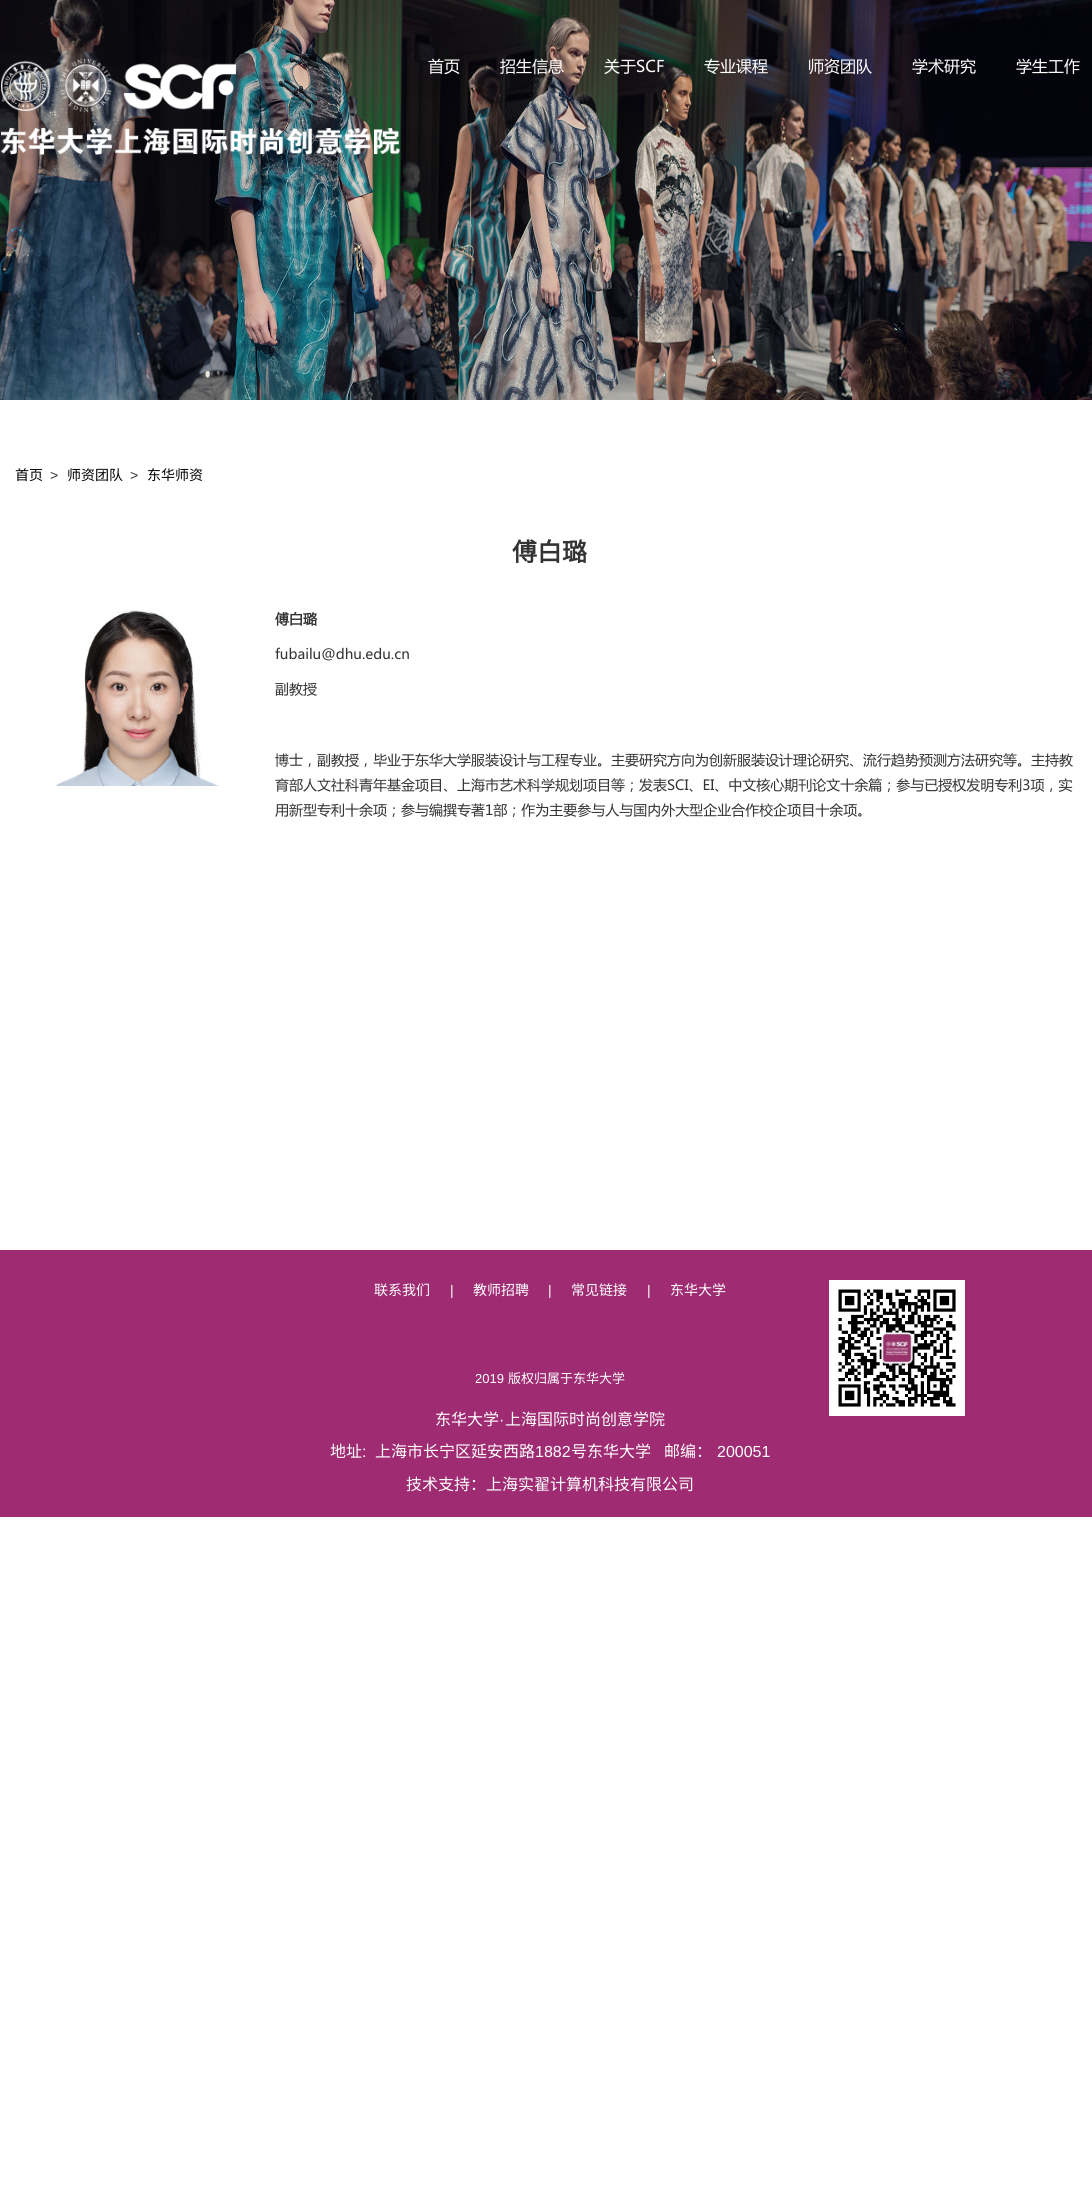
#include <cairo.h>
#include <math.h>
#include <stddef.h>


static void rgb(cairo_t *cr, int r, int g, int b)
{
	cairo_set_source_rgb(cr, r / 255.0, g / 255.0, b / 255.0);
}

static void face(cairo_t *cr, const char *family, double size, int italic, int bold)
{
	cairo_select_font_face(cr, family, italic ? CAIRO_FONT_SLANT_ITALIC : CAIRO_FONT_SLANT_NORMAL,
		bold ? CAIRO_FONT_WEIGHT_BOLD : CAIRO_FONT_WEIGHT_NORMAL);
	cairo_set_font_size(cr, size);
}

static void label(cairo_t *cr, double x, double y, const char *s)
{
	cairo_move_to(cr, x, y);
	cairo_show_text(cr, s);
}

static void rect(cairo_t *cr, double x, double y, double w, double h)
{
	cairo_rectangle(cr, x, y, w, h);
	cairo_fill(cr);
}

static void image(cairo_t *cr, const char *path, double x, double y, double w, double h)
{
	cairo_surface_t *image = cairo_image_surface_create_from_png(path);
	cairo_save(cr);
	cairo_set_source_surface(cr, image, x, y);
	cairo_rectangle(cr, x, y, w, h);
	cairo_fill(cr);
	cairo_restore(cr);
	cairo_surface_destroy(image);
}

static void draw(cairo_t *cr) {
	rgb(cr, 255, 255, 255);
	cairo_paint(cr);
	image(cr, "image0.png", 0, 0, 1092, 400);
	image(cr, "image1.png", 0, 59, 400, 96);
	face(cr, "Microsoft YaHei", 16, 0, 0);
	rgb(cr, 255, 255, 255);
	label(cr, 428, 72, "首页");
	label(cr, 500, 72, "招生信息");
	label(cr, 604, 72, "关于SCF");
	label(cr, 704, 72, "专业课程");
	label(cr, 808, 72, "师资团队");
	label(cr, 912, 72, "学术研究");
	label(cr, 1016, 72, "学生工作");
	face(cr, "Noto Sans CJK SC", 14, 0, 0);
	rgb(cr, 0, 0, 0);
	label(cr, 15, 480, "首页");
	face(cr, "Liberation Sans", 14, 0, 0);
	rgb(cr, 51, 51, 51);
	label(cr, 50, 480, ">");
	face(cr, "Noto Sans CJK SC", 14, 0, 0);
	rgb(cr, 0, 0, 0);
	label(cr, 67, 480, "师资团队");
	face(cr, "Liberation Sans", 14, 0, 0);
	rgb(cr, 51, 51, 51);
	label(cr, 130, 480, ">");
	face(cr, "Noto Sans CJK SC", 14, 0, 0);
	rgb(cr, 0, 0, 0);
	label(cr, 147, 480, "东华师资");
	face(cr, "Noto Sans CJK SC", 25, 0, 1);
	rgb(cr, 51, 51, 51);
	label(cr, 512, 561, "傅白璐");
	image(cr, "image2.png", 56, 609, 163, 177);
	face(cr, "Microsoft YaHei", 14, 0, 1);
	label(cr, 275, 624, "傅白璐");
	face(cr, "Microsoft YaHei", 14, 0, 0);
	label(cr, 275, 659, "fubailu@dhu.edu.cn");
	label(cr, 275, 694, "副教授");
	label(cr, 275, 765, "博士，副教授，毕业于东华大学服装设计与工程专业。主要研究方向为创新服装设计理论研究、流行趋势预测方法研究等。主持教");
	label(cr, 275, 790, "育部人文社科青年基金项目、上海市艺术科学规划项目等；发表SCI、EI、中文核心期刊论文十余篇；参与已授权发明专利3项，实");
	label(cr, 275, 815, "用新型专利十余项；参与编撰专著1部；作为主要参与人与国内外大型企业合作校企项目十余项。");
	rgb(cr, 159, 43, 114);
	rect(cr, 0, 1250, 1092, 267);
	face(cr, "Noto Sans CJK SC", 14, 0, 0);
	rgb(cr, 255, 255, 255);
	label(cr, 374, 1295, "联系我们");
	face(cr, "Liberation Sans", 14, 0, 0);
	label(cr, 450, 1295, "|");
	face(cr, "Noto Sans CJK SC", 14, 0, 0);
	label(cr, 473, 1295, "教师招聘");
	face(cr, "Liberation Sans", 14, 0, 0);
	label(cr, 548, 1295, "|");
	face(cr, "Noto Sans CJK SC", 14, 0, 0);
	label(cr, 571, 1295, "常见链接");
	face(cr, "Liberation Sans", 14, 0, 0);
	label(cr, 647, 1295, "|");
	face(cr, "Noto Sans CJK SC", 14, 0, 0);
	label(cr, 670, 1295, "东华大学");
	face(cr, "Liberation Sans", 13, 0, 0);
	label(cr, 475, 1383, "2019");
	face(cr, "Noto Sans CJK SC", 13, 0, 0);
	label(cr, 508, 1383, "版权归属于东华大学");
	face(cr, "Noto Sans CJK SC", 16, 0, 0);
	label(cr, 435, 1425, "东华大学");
	face(cr, "Liberation Sans", 16, 0, 0);
	label(cr, 499, 1425, "·");
	face(cr, "Noto Sans CJK SC", 16, 0, 0);
	label(cr, 505, 1425, "上海国际时尚创意学院");
	label(cr, 330, 1457, "地址");
	face(cr, "Liberation Sans", 16, 0, 0);
	label(cr, 362, 1457, ":");
	face(cr, "Noto Sans CJK SC", 16, 0, 0);
	label(cr, 375, 1457, "上海市长宁区延安西路");
	face(cr, "Liberation Sans", 16, 0, 0);
	label(cr, 535, 1457, "1882");
	face(cr, "Noto Sans CJK SC", 16, 0, 0);
	label(cr, 571, 1457, "号东华大学");
	label(cr, 664, 1457, "邮编：");
	face(cr, "Liberation Sans", 16, 0, 0);
	label(cr, 717, 1457, "200051");
	face(cr, "Noto Sans CJK SC", 16, 0, 0);
	label(cr, 406, 1490, "技术支持：上海实翟计算机科技有限公司");
	image(cr, "image3.png", 829, 1280, 136, 136);
}

int main(void) {
	cairo_surface_t *surface = cairo_image_surface_create(CAIRO_FORMAT_RGB24, 1092, 2208);
	cairo_t *cr = cairo_create(surface);
	cairo_font_options_t *options = cairo_font_options_create();
	cairo_font_options_set_hint_metrics(options, CAIRO_HINT_METRICS_OFF);
	cairo_font_options_set_hint_style(options, CAIRO_HINT_STYLE_NONE);
	cairo_set_font_options(cr, options);
	cairo_set_miter_limit(cr, 4);
	draw(cr);
	cairo_surface_write_to_png(surface, "render.png");
	cairo_font_options_destroy(options);
	cairo_destroy(cr);
	cairo_surface_destroy(surface);
	return 0;
}
